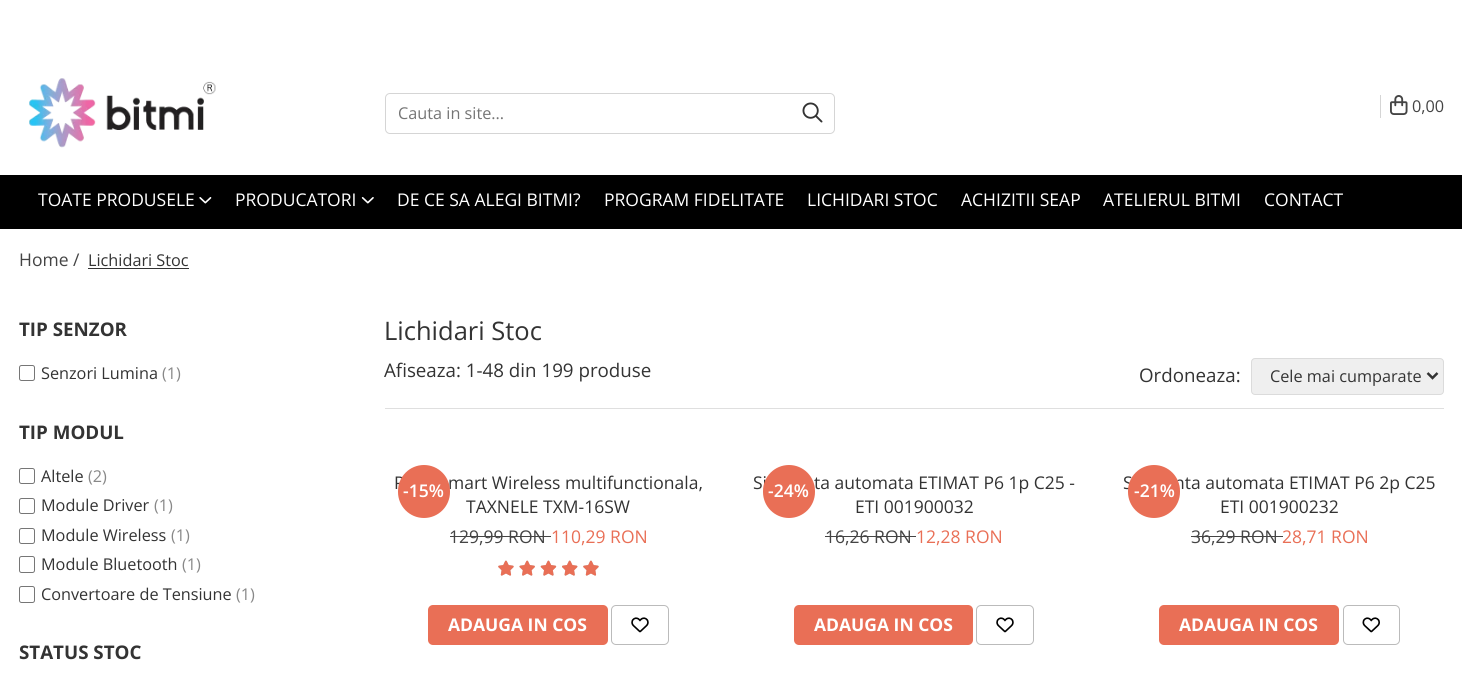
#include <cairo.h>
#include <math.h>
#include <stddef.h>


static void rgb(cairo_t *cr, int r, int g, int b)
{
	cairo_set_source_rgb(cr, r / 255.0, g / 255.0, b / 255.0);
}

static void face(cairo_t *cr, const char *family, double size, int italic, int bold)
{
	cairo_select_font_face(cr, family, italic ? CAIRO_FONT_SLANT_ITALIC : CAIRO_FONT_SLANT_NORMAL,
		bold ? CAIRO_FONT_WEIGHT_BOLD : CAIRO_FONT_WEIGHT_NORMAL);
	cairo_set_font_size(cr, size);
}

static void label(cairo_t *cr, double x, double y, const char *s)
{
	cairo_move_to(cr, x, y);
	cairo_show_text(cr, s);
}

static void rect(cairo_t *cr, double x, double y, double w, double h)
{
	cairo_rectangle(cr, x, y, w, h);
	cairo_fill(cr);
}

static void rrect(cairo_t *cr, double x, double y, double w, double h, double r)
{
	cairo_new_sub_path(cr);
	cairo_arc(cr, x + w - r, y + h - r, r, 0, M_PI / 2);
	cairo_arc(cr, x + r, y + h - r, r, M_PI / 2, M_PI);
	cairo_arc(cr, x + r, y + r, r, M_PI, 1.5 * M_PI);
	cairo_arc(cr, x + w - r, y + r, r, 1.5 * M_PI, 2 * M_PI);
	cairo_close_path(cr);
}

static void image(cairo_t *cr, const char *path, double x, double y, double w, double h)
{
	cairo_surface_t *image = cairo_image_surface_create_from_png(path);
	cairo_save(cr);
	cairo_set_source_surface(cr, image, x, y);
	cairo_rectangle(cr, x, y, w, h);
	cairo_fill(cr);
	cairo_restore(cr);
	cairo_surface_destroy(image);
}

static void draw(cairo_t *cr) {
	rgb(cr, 255, 255, 255);
	cairo_paint(cr);
	image(cr, "image0.png", 29, 78, 187, 70);
	rrect(cr, 385.5, 93.5, 449, 40, 4.5);
	rgb(cr, 213, 213, 213);
	cairo_set_line_width(cr, 1);
	cairo_stroke(cr);
	face(cr, "Open Sans", 16.25, 0, 0);
	rgb(cr, 117, 117, 117);
	label(cr, 398, 119, "Cauta in site...");
	image(cr, "image1.png", 802, 102, 21, 21);
	rgb(cr, 213, 213, 213);
	rect(cr, 1380, 95, 1, 23);
	image(cr, "image2.png", 1390, 95, 18, 20);
	rgb(cr, 68, 68, 68);
	label(cr, 1412, 112, "0,00");
	rgb(cr, 0, 0, 0);
	rect(cr, 0, 175, 1462, 54);
	face(cr, "Open Sans", 17.5, 0, 0);
	rgb(cr, 255, 255, 255);
	label(cr, 38, 206, "TOATE PRODUSELE");
	image(cr, "image3.png", 199, 197, 13, 7);
	label(cr, 235, 206, "PRODUCATORI");
	image(cr, "image4.png", 361, 197, 13, 7);
	label(cr, 397, 206, "DE CE SA ALEGI BITMI?");
	label(cr, 604, 206, "PROGRAM FIDELITATE");
	label(cr, 807, 206, "LICHIDARI STOC");
	label(cr, 961, 206, "ACHIZITII SEAP");
	label(cr, 1103, 206, "ATELIERUL BITMI");
	label(cr, 1264, 206, "CONTACT");
	rgb(cr, 68, 68, 68);
	label(cr, 19, 266, "Home /");
	face(cr, "Open Sans", 16.25, 0, 0);
	rgb(cr, 51, 51, 51);
	label(cr, 88, 266, "Lichidari Stoc");
	rect(cr, 88, 268, 101, 1);
	face(cr, "Open Sans", 18.75, 0, 1);
	label(cr, 19, 336, "TIP SENZOR");
	rrect(cr, 19.5, 365.5, 15, 15, 2);
	rgb(cr, 118, 118, 118);
	cairo_stroke(cr);
	face(cr, "Open Sans", 16.25, 0, 0);
	rgb(cr, 51, 51, 51);
	label(cr, 41, 379, "Senzori Lumina");
	rgb(cr, 136, 136, 136);
	label(cr, 162, 379, "(1)");
	face(cr, "Open Sans", 18.75, 0, 1);
	rgb(cr, 51, 51, 51);
	label(cr, 19, 439, "TIP MODUL");
	rrect(cr, 19.5, 468.5, 15, 15, 2);
	rgb(cr, 118, 118, 118);
	cairo_stroke(cr);
	face(cr, "Open Sans", 16.25, 0, 0);
	rgb(cr, 51, 51, 51);
	label(cr, 41, 482, "Altele");
	rgb(cr, 136, 136, 136);
	label(cr, 88, 482, "(2)");
	rrect(cr, 19.5, 498.5, 15, 15, 2);
	rgb(cr, 118, 118, 118);
	cairo_stroke(cr);
	rgb(cr, 51, 51, 51);
	label(cr, 41, 511, "Module Driver");
	rgb(cr, 136, 136, 136);
	label(cr, 154, 511, "(1)");
	rrect(cr, 19.5, 528.5, 15, 15, 2);
	rgb(cr, 118, 118, 118);
	cairo_stroke(cr);
	rgb(cr, 51, 51, 51);
	label(cr, 41, 541, "Module Wireless");
	rgb(cr, 136, 136, 136);
	label(cr, 171, 541, "(1)");
	rrect(cr, 19.5, 556.5, 15, 16, 2);
	rgb(cr, 118, 118, 118);
	cairo_stroke(cr);
	rgb(cr, 51, 51, 51);
	label(cr, 41, 570, "Module Bluetooth");
	rgb(cr, 136, 136, 136);
	label(cr, 182, 570, "(1)");
	rrect(cr, 19.5, 586.5, 15, 16, 2);
	rgb(cr, 118, 118, 118);
	cairo_stroke(cr);
	rgb(cr, 51, 51, 51);
	label(cr, 41, 600, "Convertoare de Tensiune");
	rgb(cr, 136, 136, 136);
	label(cr, 236, 600, "(1)");
	face(cr, "Open Sans", 18.75, 0, 1);
	rgb(cr, 51, 51, 51);
	label(cr, 19, 659, "STATUS STOC");
	face(cr, "Open Sans", 25.5, 0, 0);
	label(cr, 384, 340, "Lichidari Stoc");
	rgb(cr, 223, 223, 223);
	rect(cr, 385, 408, 1059, 1);
	face(cr, "Open Sans", 18.75, 0, 0);
	rgb(cr, 51, 51, 51);
	label(cr, 384, 377, "Afiseaza: 1-48 din 199 produse");
	label(cr, 1139, 382, "Ordoneaza:");
	rgb(cr, 239, 239, 239);
	rrect(cr, 1251.5, 358.5, 192, 36, 3.5);
	cairo_fill_preserve(cr);
	rgb(cr, 219, 219, 219);
	cairo_stroke(cr);
	cairo_new_path(cr);
	cairo_move_to(cr, 1427.5, 373);
	cairo_line_to(cr, 1432.5, 378);
	cairo_line_to(cr, 1437.5, 373);
	rgb(cr, 51, 51, 51);
	cairo_set_line_width(cr, 2.5);
	cairo_stroke(cr);
	face(cr, "Open Sans", 16.25, 0, 0);
	label(cr, 1270, 382, "Cele mai cumparate");
	face(cr, "Open Sans", 17.5, 0, 0);
	label(cr, 394, 489, "P");
	label(cr, 448, 489, "mart Wireless multifunctionala,");
	label(cr, 466, 513, "TAXNELE TXM-16SW");
	rgb(cr, 68, 68, 68);
	label(cr, 449, 543, "129,99 RON");
	rect(cr, 450, 536, 101, 1);
	rgb(cr, 233, 111, 86);
	label(cr, 551, 543, "110,29 RON");
	image(cr, "image5.png", 498, 560, 16, 16);
	image(cr, "image6.png", 498, 560, 16, 16);
	image(cr, "image10.png", 519, 560, 16, 16);
	image(cr, "image7.png", 519, 560, 16, 16);
	image(cr, "image11.png", 540, 560, 17, 16);
	image(cr, "image8.png", 540, 560, 17, 16);
	image(cr, "image12.png", 562, 560, 16, 16);
	image(cr, "image9.png", 562, 560, 16, 16);
	image(cr, "image5.png", 583, 560, 16, 16);
	image(cr, "image6.png", 583, 560, 16, 16);
	rrect(cr, 398, 465, 52, 53, 26);
	cairo_fill(cr);
	face(cr, "Open Sans SemiBold", 17.5, 0, 0);
	rgb(cr, 255, 255, 255);
	label(cr, 403, 497, "-15%");
	rgb(cr, 233, 111, 86);
	rrect(cr, 428, 605, 180, 40, 5);
	cairo_fill(cr);
	face(cr, "Open Sans", 17.5, 0, 1);
	rgb(cr, 255, 255, 255);
	label(cr, 448, 631, "ADAUGA IN COS");
	rrect(cr, 611.5, 605.5, 57, 39, 4.5);
	rgb(cr, 187, 187, 187);
	cairo_set_line_width(cr, 1);
	cairo_stroke(cr);
	image(cr, "image13.png", 631, 617, 18, 16);
	face(cr, "Open Sans", 17.5, 0, 0);
	rgb(cr, 51, 51, 51);
	label(cr, 753, 489, "Si");
	label(cr, 814, 489, "ta automata ETIMAT P6 1p C25 -");
	label(cr, 855, 513, "ETI 001900032");
	rgb(cr, 68, 68, 68);
	label(cr, 825, 543, "16,26 RON");
	rect(cr, 825, 536, 91, 1);
	rgb(cr, 233, 111, 86);
	label(cr, 916, 543, "12,28 RON");
	rrect(cr, 763, 465, 52, 53, 26);
	cairo_fill(cr);
	face(cr, "Open Sans SemiBold", 17.5, 0, 0);
	rgb(cr, 255, 255, 255);
	label(cr, 768, 497, "-24%");
	rgb(cr, 233, 111, 86);
	rrect(cr, 794, 605, 179, 40, 5);
	cairo_fill(cr);
	face(cr, "Open Sans", 17.5, 0, 1);
	rgb(cr, 255, 255, 255);
	label(cr, 814, 631, "ADAUGA IN COS");
	rrect(cr, 976.5, 605.5, 57, 39, 4.5);
	rgb(cr, 187, 187, 187);
	cairo_stroke(cr);
	image(cr, "image13.png", 996, 617, 18, 16);
	face(cr, "Open Sans", 17.5, 0, 0);
	rgb(cr, 51, 51, 51);
	label(cr, 1123, 489, "S");
	label(cr, 1174, 489, "nta automata ETIMAT P6 2p C25");
	label(cr, 1220, 513, "ETI 001900232");
	rgb(cr, 68, 68, 68);
	label(cr, 1191, 543, "36,29 RON");
	rect(cr, 1191, 536, 92, 1);
	rgb(cr, 233, 111, 86);
	label(cr, 1282, 543, "28,71 RON");
	rrect(cr, 1128, 465, 52, 53, 26);
	cairo_fill(cr);
	face(cr, "Open Sans SemiBold", 17.5, 0, 0);
	rgb(cr, 255, 255, 255);
	label(cr, 1134, 497, "-21%");
	rgb(cr, 233, 111, 86);
	rrect(cr, 1159, 605, 180, 40, 5);
	cairo_fill(cr);
	face(cr, "Open Sans", 17.5, 0, 1);
	rgb(cr, 255, 255, 255);
	label(cr, 1179, 631, "ADAUGA IN COS");
	rrect(cr, 1343.5, 605.5, 56, 39, 4.5);
	rgb(cr, 187, 187, 187);
	cairo_stroke(cr);
	image(cr, "image14.png", 1362, 617, 18, 16);
}

int main(void) {
	cairo_surface_t *surface = cairo_image_surface_create(CAIRO_FORMAT_RGB24, 1462, 681);
	cairo_t *cr = cairo_create(surface);
	cairo_font_options_t *options = cairo_font_options_create();
	cairo_font_options_set_hint_metrics(options, CAIRO_HINT_METRICS_OFF);
	cairo_font_options_set_hint_style(options, CAIRO_HINT_STYLE_NONE);
	cairo_set_font_options(cr, options);
	cairo_set_miter_limit(cr, 4);
	draw(cr);
	cairo_surface_write_to_png(surface, "render.png");
	cairo_font_options_destroy(options);
	cairo_destroy(cr);
	cairo_surface_destroy(surface);
	return 0;
}
